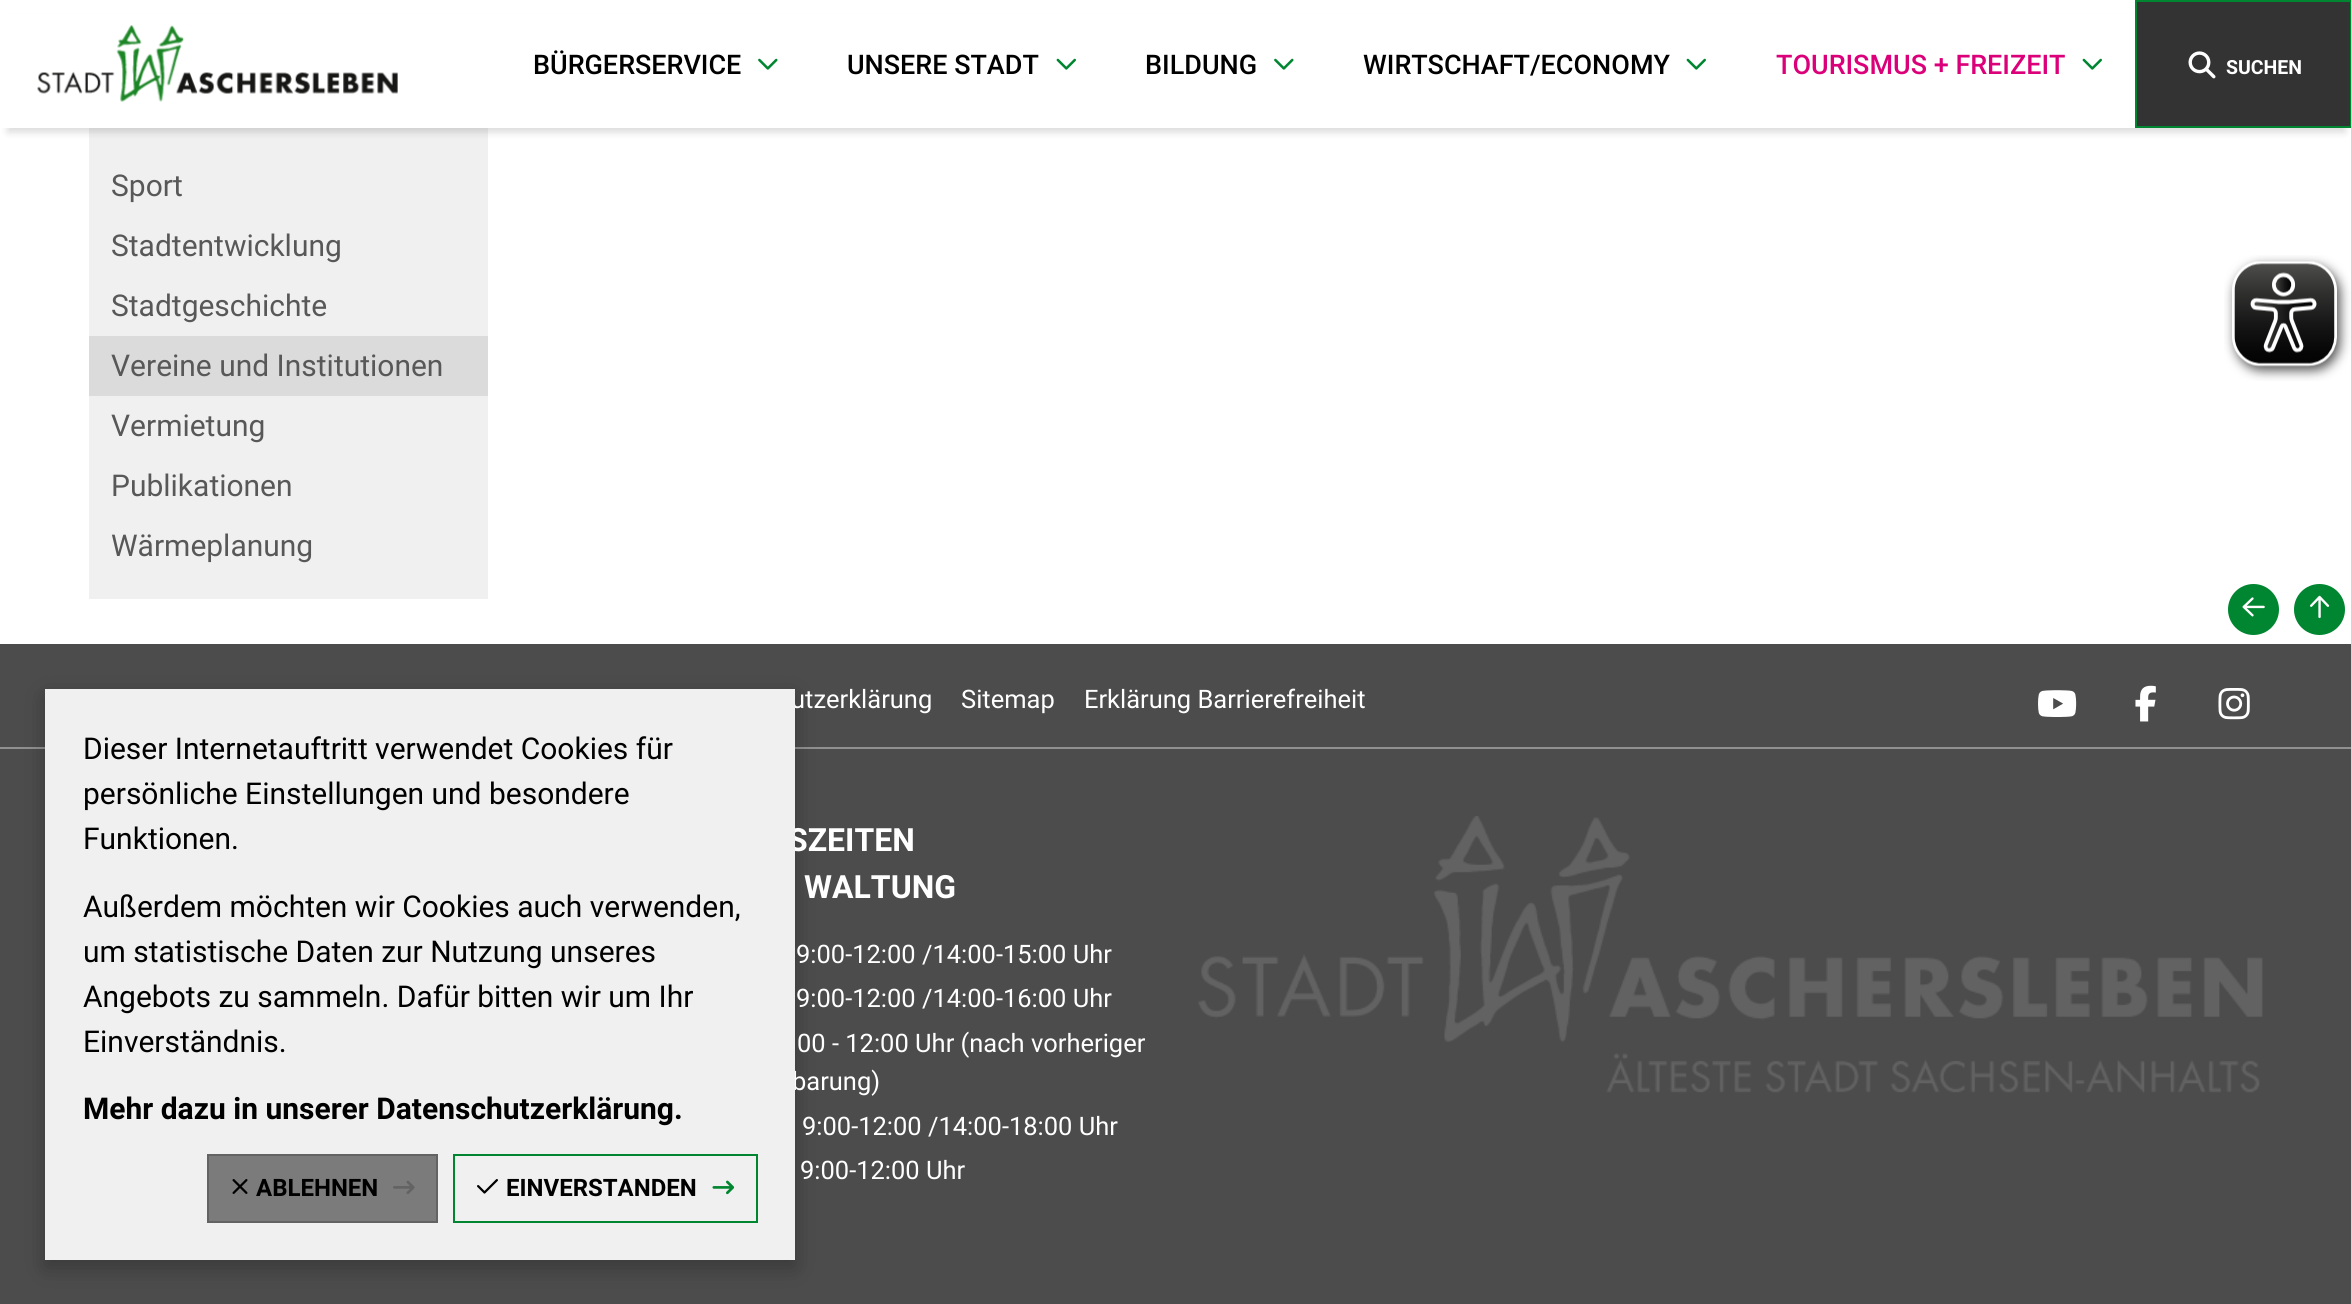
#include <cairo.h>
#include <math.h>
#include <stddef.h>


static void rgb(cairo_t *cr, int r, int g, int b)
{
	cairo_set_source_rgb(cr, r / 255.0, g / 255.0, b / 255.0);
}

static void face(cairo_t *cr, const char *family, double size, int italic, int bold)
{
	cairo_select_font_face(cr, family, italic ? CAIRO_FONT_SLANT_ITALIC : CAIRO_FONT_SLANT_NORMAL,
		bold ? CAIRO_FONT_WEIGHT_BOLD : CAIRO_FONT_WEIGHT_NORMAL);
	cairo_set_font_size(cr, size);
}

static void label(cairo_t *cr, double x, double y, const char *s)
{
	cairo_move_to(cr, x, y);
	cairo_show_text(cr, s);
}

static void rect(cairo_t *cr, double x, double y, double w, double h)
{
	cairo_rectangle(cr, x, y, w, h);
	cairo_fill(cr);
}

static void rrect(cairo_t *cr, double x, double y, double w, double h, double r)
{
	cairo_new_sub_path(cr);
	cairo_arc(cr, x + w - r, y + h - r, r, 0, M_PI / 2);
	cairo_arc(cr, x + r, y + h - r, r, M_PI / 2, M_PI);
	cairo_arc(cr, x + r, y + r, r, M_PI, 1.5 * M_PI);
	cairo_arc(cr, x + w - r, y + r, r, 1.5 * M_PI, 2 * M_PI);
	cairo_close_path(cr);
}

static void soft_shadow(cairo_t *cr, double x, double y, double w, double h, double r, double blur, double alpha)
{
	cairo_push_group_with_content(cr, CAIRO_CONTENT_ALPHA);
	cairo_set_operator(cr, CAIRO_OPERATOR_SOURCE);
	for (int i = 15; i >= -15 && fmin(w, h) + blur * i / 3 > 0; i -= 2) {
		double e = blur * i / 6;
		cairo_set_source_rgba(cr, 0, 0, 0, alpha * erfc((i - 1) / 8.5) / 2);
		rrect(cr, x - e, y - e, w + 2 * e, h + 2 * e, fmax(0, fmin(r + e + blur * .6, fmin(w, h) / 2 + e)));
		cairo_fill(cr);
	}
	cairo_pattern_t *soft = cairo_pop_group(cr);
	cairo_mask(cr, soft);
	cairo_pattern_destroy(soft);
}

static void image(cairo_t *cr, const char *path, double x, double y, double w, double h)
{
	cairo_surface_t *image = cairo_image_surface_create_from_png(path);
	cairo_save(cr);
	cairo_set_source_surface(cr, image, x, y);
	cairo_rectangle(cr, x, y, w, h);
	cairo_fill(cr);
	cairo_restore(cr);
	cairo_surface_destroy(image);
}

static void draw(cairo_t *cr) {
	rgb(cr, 255, 255, 255);
	cairo_paint(cr);
	rgb(cr, 240, 240, 240);
	rect(cr, 89, 128, 399, 471);
	rgb(cr, 0, 0, 0);
	soft_shadow(cr, 8, 20, 2337, 112, 0, 4, 0.15);
	rgb(cr, 255, 255, 255);
	rect(cr, 2, 14, 2133, 114);
	image(cr, "image0.png", 37, 25, 361, 77);
	face(cr, "Roboto Medium", 27, 0, 0);
	rgb(cr, 0, 0, 0);
	label(cr, 533, 74, "BÜRGERSERVICE");
	image(cr, "image1.png", 758, 58, 20, 12);
	label(cr, 847, 74, "UNSERE STADT");
	image(cr, "image2.png", 1056, 58, 20, 12);
	label(cr, 1145, 74, "BILDUNG");
	image(cr, "image1.png", 1274, 58, 20, 12);
	label(cr, 1363, 74, "WIRTSCHAFT/ECONOMY");
	image(cr, "image2.png", 1686, 58, 20, 12);
	rgb(cr, 219, 0, 122);
	label(cr, 1776, 74, "TOURISMUS + FREIZEIT");
	image(cr, "image2.png", 2082, 58, 20, 12);
	rgb(cr, 51, 51, 51);
	cairo_rectangle(cr, 2136, 1, 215, 126);
	cairo_fill_preserve(cr);
	rgb(cr, 0, 133, 48);
	cairo_stroke(cr);
	image(cr, "image3.png", 2188, 51, 28, 28);
	face(cr, "Roboto", 19.5, 0, 1);
	rgb(cr, 255, 255, 255);
	label(cr, 2226, 74, "SUCHEN");
	face(cr, "Roboto", 30, 0, 0);
	rgb(cr, 88, 88, 88);
	label(cr, 111, 196, "Sport");
	label(cr, 111, 256, "Stadtentwicklung");
	label(cr, 111, 316, "Stadtgeschichte");
	rgb(cr, 219, 219, 219);
	rect(cr, 89, 336, 399, 60);
	rgb(cr, 88, 88, 88);
	label(cr, 111, 376, "Vereine und Institutionen");
	label(cr, 111, 436, "Vermietung");
	label(cr, 111, 496, "Publikationen");
	label(cr, 111, 556, "Wärmeplanung");
	image(cr, "image4.png", 2224, 255, 127, 126);
	rgb(cr, 76, 76, 76);
	rect(cr, 0, 644, 2351, 660);
	rgb(cr, 144, 144, 144);
	rect(cr, 0, 747, 2351, 2);
	rgb(cr, 0, 0, 0);
	soft_shadow(cr, 45, 696, 750, 572, 0, 11, 0.25);
	face(cr, "Roboto", 25.5, 0, 0);
	rgb(cr, 255, 255, 255);
	label(cr, 791, 708, "utzerklärung");
	face(cr, "Roboto", 32, 0, 1);
	label(cr, 788, 851, "SZEITEN");
	face(cr, "Roboto", 25.5, 0, 0);
	label(cr, 792, 1090, "barung)");
	rgb(cr, 240, 240, 240);
	rect(cr, 45, 689, 750, 571);
	face(cr, "Roboto", 30, 0, 0);
	rgb(cr, 0, 0, 0);
	label(cr, 83, 759, "Dieser Internetauftritt verwendet Cookies für");
	label(cr, 83, 804, "persönliche Einstellungen und besondere");
	label(cr, 83, 849, "Funktionen.");
	label(cr, 83, 917, "Außerdem möchten wir Cookies auch verwenden,");
	label(cr, 83, 962, "um statistische Daten zur Nutzung unseres");
	label(cr, 83, 1007, "Angebots zu sammeln. Dafür bitten wir um Ihr");
	label(cr, 83, 1052, "Einverständnis.");
	face(cr, "Roboto", 30, 0, 1);
	label(cr, 83, 1119, "Mehr dazu in unserer Datenschutzerklärung.");
	rgb(cr, 123, 123, 123);
	cairo_rectangle(cr, 208, 1155, 229, 67);
	cairo_fill_preserve(cr);
	rgb(cr, 99, 99, 99);
	cairo_stroke(cr);
	image(cr, "image5.png", 232, 1179, 16, 15);
	face(cr, "Roboto", 24, 0, 1);
	rgb(cr, 0, 0, 0);
	label(cr, 256, 1196, "ABLEHNEN");
	image(cr, "image6.png", 393, 1180, 22, 14);
	cairo_rectangle(cr, 454, 1155, 303, 67);
	rgb(cr, 0, 133, 48);
	cairo_stroke(cr);
	image(cr, "image7.png", 477, 1179, 21, 15);
	rgb(cr, 0, 0, 0);
	label(cr, 506, 1196, "EINVERSTANDEN");
	image(cr, "image8.png", 712, 1180, 23, 15);
	rgb(cr, 0, 133, 48);
	cairo_arc(cr, 2253.5, 609.5, 25.5, 0, 2 * M_PI);
	cairo_fill(cr);
	image(cr, "image9.png", 2242, 597, 23, 20);
	cairo_arc(cr, 2319.5, 609.5, 25.5, 0, 2 * M_PI);
	cairo_fill(cr);
	image(cr, "image10.png", 2310, 595, 20, 24);
	face(cr, "Roboto", 25.5, 0, 0);
	rgb(cr, 255, 255, 255);
	label(cr, 961, 708, "Sitemap");
	label(cr, 1084, 708, "Erklärung Barrierefreiheit");
	image(cr, "image11.png", 2038, 690, 39, 27);
	image(cr, "image12.png", 2135, 685, 21, 37);
	image(cr, "image13.png", 2218, 688, 32, 32);
	face(cr, "Roboto", 32, 0, 1);
	label(cr, 804, 898, "WALTUNG");
	face(cr, "Roboto", 25.5, 0, 0);
	label(cr, 796, 963, "9:00-12:00 /14:00-15:00 Uhr");
	label(cr, 796, 1007, "9:00-12:00 /14:00-16:00 Uhr");
	label(cr, 797, 1052, "00 - 12:00 Uhr (nach vorheriger");
	label(cr, 802, 1135, "9:00-12:00 /14:00-18:00 Uhr");
	label(cr, 800, 1179, "9:00-12:00 Uhr");
	image(cr, "image14.png", 1198, 816, 1065, 277);
}

int main(void) {
	cairo_surface_t *surface = cairo_image_surface_create(CAIRO_FORMAT_RGB24, 2351, 1304);
	cairo_t *cr = cairo_create(surface);
	cairo_font_options_t *options = cairo_font_options_create();
	cairo_font_options_set_hint_metrics(options, CAIRO_HINT_METRICS_OFF);
	cairo_font_options_set_hint_style(options, CAIRO_HINT_STYLE_NONE);
	cairo_set_font_options(cr, options);
	cairo_set_miter_limit(cr, 4);
	draw(cr);
	cairo_surface_write_to_png(surface, "render.png");
	cairo_font_options_destroy(options);
	cairo_destroy(cr);
	cairo_surface_destroy(surface);
	return 0;
}
